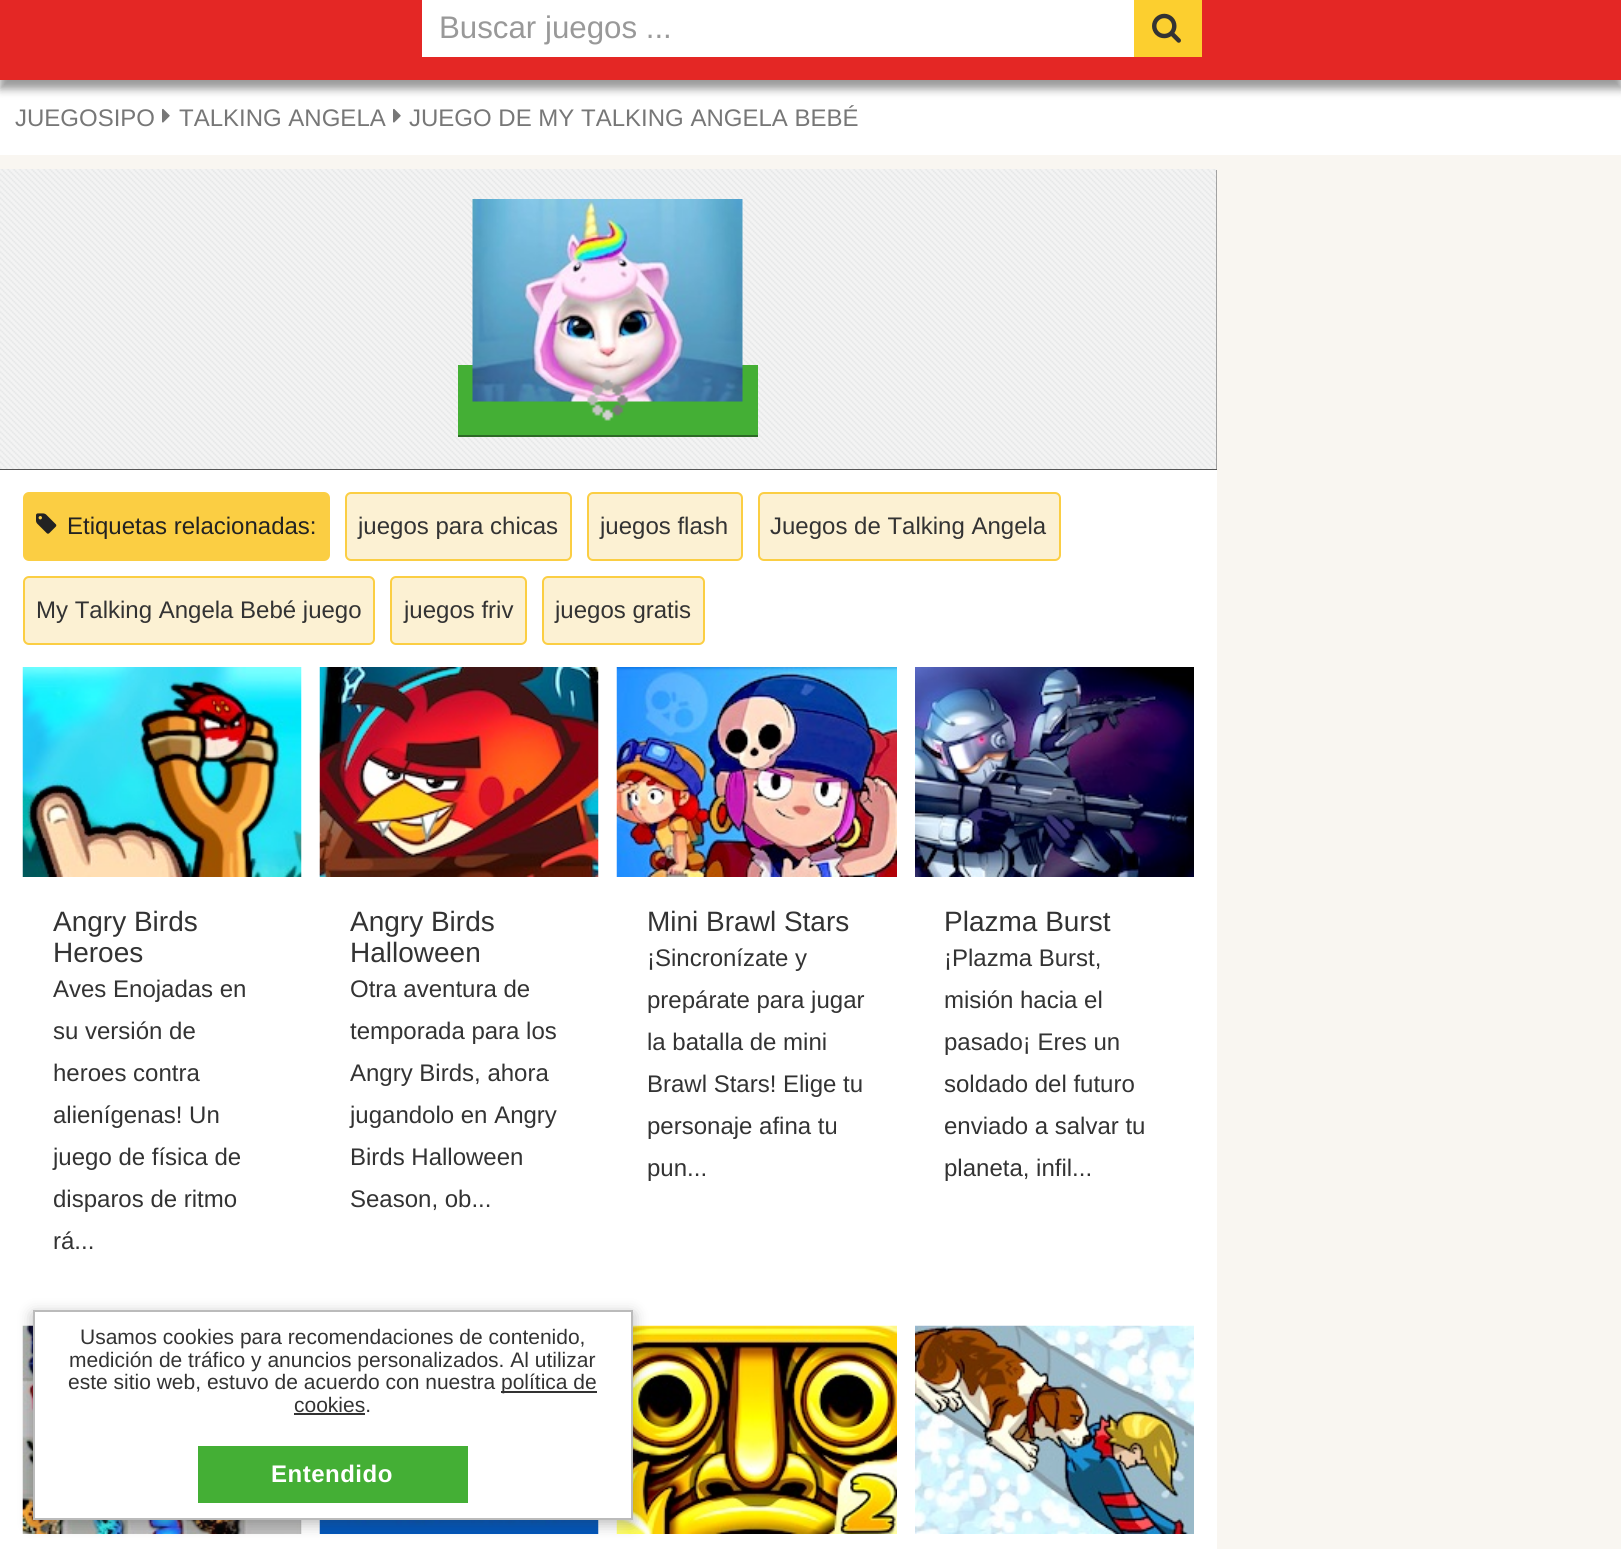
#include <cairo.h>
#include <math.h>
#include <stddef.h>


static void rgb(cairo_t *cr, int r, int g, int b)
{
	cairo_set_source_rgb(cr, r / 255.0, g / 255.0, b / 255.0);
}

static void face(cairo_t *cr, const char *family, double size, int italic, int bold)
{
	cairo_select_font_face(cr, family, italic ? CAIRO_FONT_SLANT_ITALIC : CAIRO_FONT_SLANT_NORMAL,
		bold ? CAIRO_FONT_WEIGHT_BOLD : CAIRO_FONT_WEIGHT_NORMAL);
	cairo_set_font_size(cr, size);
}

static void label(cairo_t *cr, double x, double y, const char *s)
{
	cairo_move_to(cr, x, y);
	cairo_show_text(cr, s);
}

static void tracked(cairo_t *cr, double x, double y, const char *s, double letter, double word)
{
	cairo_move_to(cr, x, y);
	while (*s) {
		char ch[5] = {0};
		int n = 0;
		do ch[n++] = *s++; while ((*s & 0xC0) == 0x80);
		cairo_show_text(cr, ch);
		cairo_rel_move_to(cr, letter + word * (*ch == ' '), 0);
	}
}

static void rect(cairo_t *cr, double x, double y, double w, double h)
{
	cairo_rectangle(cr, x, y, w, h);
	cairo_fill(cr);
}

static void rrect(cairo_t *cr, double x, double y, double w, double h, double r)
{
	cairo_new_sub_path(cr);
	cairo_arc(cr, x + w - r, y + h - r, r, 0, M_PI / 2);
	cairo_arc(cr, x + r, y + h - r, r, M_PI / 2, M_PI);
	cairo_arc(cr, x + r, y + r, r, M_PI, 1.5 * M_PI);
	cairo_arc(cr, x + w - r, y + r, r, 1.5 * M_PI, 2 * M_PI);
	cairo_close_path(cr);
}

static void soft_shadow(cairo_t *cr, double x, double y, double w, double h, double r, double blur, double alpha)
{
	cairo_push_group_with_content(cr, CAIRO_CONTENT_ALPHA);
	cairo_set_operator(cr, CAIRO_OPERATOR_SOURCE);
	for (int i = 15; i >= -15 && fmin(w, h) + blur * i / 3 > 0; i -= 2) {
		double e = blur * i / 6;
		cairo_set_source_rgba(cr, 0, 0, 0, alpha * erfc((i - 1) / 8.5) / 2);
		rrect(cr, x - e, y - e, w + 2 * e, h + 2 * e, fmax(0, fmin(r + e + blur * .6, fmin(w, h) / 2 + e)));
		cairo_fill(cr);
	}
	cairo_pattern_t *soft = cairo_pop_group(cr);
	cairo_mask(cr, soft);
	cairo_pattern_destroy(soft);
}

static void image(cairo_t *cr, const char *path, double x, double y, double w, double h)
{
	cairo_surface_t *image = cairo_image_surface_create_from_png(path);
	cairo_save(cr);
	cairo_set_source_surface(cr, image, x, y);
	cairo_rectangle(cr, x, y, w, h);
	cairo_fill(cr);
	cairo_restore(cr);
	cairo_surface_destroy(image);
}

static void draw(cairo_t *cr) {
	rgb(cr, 249, 246, 241);
	cairo_paint(cr);
	rgb(cr, 255, 255, 255);
	rect(cr, 0, 80, 1621, 75);
	rgb(cr, 0, 0, 0);
	soft_shadow(cr, 0, -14, 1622, 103, 0, 4.5, 0.4);
	rgb(cr, 228, 39, 37);
	rect(cr, 0, 0, 1621, 80);
	rgb(cr, 255, 255, 255);
	rect(cr, 422, 0, 712, 57);
	face(cr, "Liberation Sans", 31.25, 0, 0);
	rgb(cr, 153, 153, 153);
	label(cr, 439, 38, "Buscar juegos ...");
	rgb(cr, 252, 207, 47);
	rect(cr, 1134, 0, 68, 57);
	image(cr, "image0.png", 1152, 13, 29, 30);
	face(cr, "Liberation Sans", 24, 0, 0);
	rgb(cr, 119, 119, 119);
	label(cr, 15, 126, "JUEGOSIPO");
	image(cr, "image1.png", 162, 108, 8, 15);
	label(cr, 179, 126, "TALKING ANGELA");
	image(cr, "image1.png", 393, 108, 8, 15);
	label(cr, 409, 126, "JUEGO DE MY TALKING ANGELA BEBÉ");
	rgb(cr, 255, 255, 255);
	rect(cr, 0, 470, 1217, 1079);
	rgb(cr, 85, 85, 85);
	rect(cr, 0, 170, 1217, 300);
	image(cr, "image2.png", 0, 169, 1217, 300);
	rgb(cr, 68, 175, 53);
	rect(cr, 458, 365, 300, 70);
	image(cr, "image3.png", 472, 199, 271, 203);
	rgb(cr, 44, 106, 37);
	rect(cr, 458, 435, 300, 2);
	image(cr, "image4.png", 587, 379, 42, 42);
	rgb(cr, 251, 206, 67);
	rrect(cr, 24, 493, 305, 67, 5);
	cairo_fill_preserve(cr);
	cairo_stroke(cr);
	image(cr, "image5.png", 36, 513, 21, 21);
	rgb(cr, 34, 34, 34);
	label(cr, 67, 534, "Etiquetas relacionadas:");
	rgb(cr, 252, 241, 211);
	rrect(cr, 346, 493, 225, 67, 5);
	cairo_fill_preserve(cr);
	rgb(cr, 251, 206, 67);
	cairo_stroke(cr);
	rgb(cr, 51, 51, 51);
	label(cr, 358, 534, "juegos para chicas");
	rgb(cr, 252, 241, 211);
	rrect(cr, 588, 493, 154, 67, 5);
	cairo_fill_preserve(cr);
	rgb(cr, 251, 206, 67);
	cairo_stroke(cr);
	rgb(cr, 51, 51, 51);
	label(cr, 600, 534, "juegos flash");
	rgb(cr, 252, 241, 211);
	rrect(cr, 759, 493, 301, 67, 5);
	cairo_fill_preserve(cr);
	rgb(cr, 251, 206, 67);
	cairo_stroke(cr);
	rgb(cr, 51, 51, 51);
	label(cr, 770, 534, "Juegos de Talking Angela");
	rgb(cr, 252, 241, 211);
	rrect(cr, 24, 577, 350, 67, 5);
	cairo_fill_preserve(cr);
	rgb(cr, 251, 206, 67);
	cairo_stroke(cr);
	rgb(cr, 51, 51, 51);
	label(cr, 36, 618, "My Talking Angela Bebé juego");
	rgb(cr, 252, 241, 211);
	rrect(cr, 391, 577, 135, 67, 5);
	cairo_fill_preserve(cr);
	rgb(cr, 251, 206, 67);
	cairo_stroke(cr);
	rgb(cr, 51, 51, 51);
	label(cr, 404, 618, "juegos friv");
	rgb(cr, 252, 241, 211);
	rrect(cr, 543, 577, 161, 67, 5);
	cairo_fill_preserve(cr);
	rgb(cr, 251, 206, 67);
	cairo_stroke(cr);
	rgb(cr, 51, 51, 51);
	label(cr, 555, 618, "juegos gratis");
	image(cr, "image6.png", 22, 667, 280, 210);
	face(cr, "Liberation Sans", 28, 0, 0);
	label(cr, 53, 931, "Angry Birds");
	label(cr, 53, 962, "Heroes");
	face(cr, "Liberation Sans", 24, 0, 0);
	label(cr, 53, 997, "Aves Enojadas en");
	label(cr, 53, 1039, "su versión de");
	label(cr, 53, 1081, "heroes contra");
	label(cr, 53, 1123, "alienígenas! Un");
	label(cr, 53, 1165, "juego de física de");
	label(cr, 53, 1207, "disparos de ritmo");
	label(cr, 53, 1249, "rá...");
	image(cr, "image7.png", 319, 667, 280, 210);
	face(cr, "Liberation Sans", 28, 0, 0);
	label(cr, 350, 931, "Angry Birds");
	label(cr, 350, 962, "Halloween");
	face(cr, "Liberation Sans", 24, 0, 0);
	label(cr, 350, 997, "Otra aventura de");
	label(cr, 350, 1039, "temporada para los");
	label(cr, 350, 1081, "Angry Birds, ahora");
	label(cr, 350, 1123, "jugandolo en Angry");
	label(cr, 350, 1165, "Birds Halloween");
	label(cr, 350, 1207, "Season, ob...");
	image(cr, "image8.png", 616, 667, 281, 210);
	face(cr, "Liberation Sans", 28, 0, 0);
	label(cr, 647, 931, "Mini Brawl Stars");
	face(cr, "Liberation Sans", 24, 0, 0);
	label(cr, 647, 966, "¡Sincronízate y");
	label(cr, 647, 1008, "prepárate para jugar");
	label(cr, 647, 1050, "la batalla de mini");
	label(cr, 647, 1092, "Brawl Stars! Elige tu");
	label(cr, 647, 1134, "personaje afina tu");
	label(cr, 647, 1176, "pun...");
	image(cr, "image9.png", 915, 667, 279, 210);
	face(cr, "Liberation Sans", 28, 0, 0);
	label(cr, 944, 931, "Plazma Burst");
	face(cr, "Liberation Sans", 24, 0, 0);
	label(cr, 944, 966, "¡Plazma Burst,");
	label(cr, 944, 1008, "misión hacia el");
	label(cr, 944, 1050, "pasado¡ Eres un");
	label(cr, 944, 1092, "soldado del futuro");
	label(cr, 944, 1134, "enviado a salvar tu");
	label(cr, 944, 1176, "planeta, infil...");
	image(cr, "image10.png", 22, 1325, 280, 209);
	image(cr, "image11.png", 319, 1520, 280, 14);
	image(cr, "image12.png", 616, 1325, 281, 209);
	image(cr, "image13.png", 915, 1325, 279, 209);
	rgb(cr, 51, 51, 51);
	soft_shadow(cr, 33, 1314, 600, 210, 0, 7.5, 0.34);
	rgb(cr, 255, 255, 255);
	cairo_rectangle(cr, 34, 1311, 598, 208);
	cairo_fill_preserve(cr);
	rgb(cr, 187, 187, 187);
	cairo_stroke(cr);
	face(cr, "Liberation Sans", 21, 0, 0);
	rgb(cr, 51, 51, 51);
	label(cr, 80, 1344, "Usamos cookies para recomendaciones de contenido,");
	label(cr, 69, 1367, "medición de tráfico y anuncios personalizados. Al utilizar");
	label(cr, 68, 1389, "este sitio web, estuvo de acuerdo con nuestra");
	rect(cr, 501, 1391, 96, 2);
	label(cr, 501, 1389, "política de");
	label(cr, 294, 1412, "cookies.");
	rect(cr, 294, 1413, 71, 2);
	rgb(cr, 68, 175, 53);
	rect(cr, 198, 1446, 270, 57);
	face(cr, "Liberation Sans", 24, 0, 1);
	rgb(cr, 255, 255, 255);
	tracked(cr, 271, 1482, "Entendido", 0.5, 0);
}

int main(void) {
	cairo_surface_t *surface = cairo_image_surface_create(CAIRO_FORMAT_RGB24, 1621, 1549);
	cairo_t *cr = cairo_create(surface);
	cairo_font_options_t *options = cairo_font_options_create();
	cairo_font_options_set_hint_metrics(options, CAIRO_HINT_METRICS_OFF);
	cairo_font_options_set_hint_style(options, CAIRO_HINT_STYLE_NONE);
	cairo_set_font_options(cr, options);
	cairo_set_miter_limit(cr, 4);
	draw(cr);
	cairo_surface_write_to_png(surface, "render.png");
	cairo_font_options_destroy(options);
	cairo_destroy(cr);
	cairo_surface_destroy(surface);
	return 0;
}
